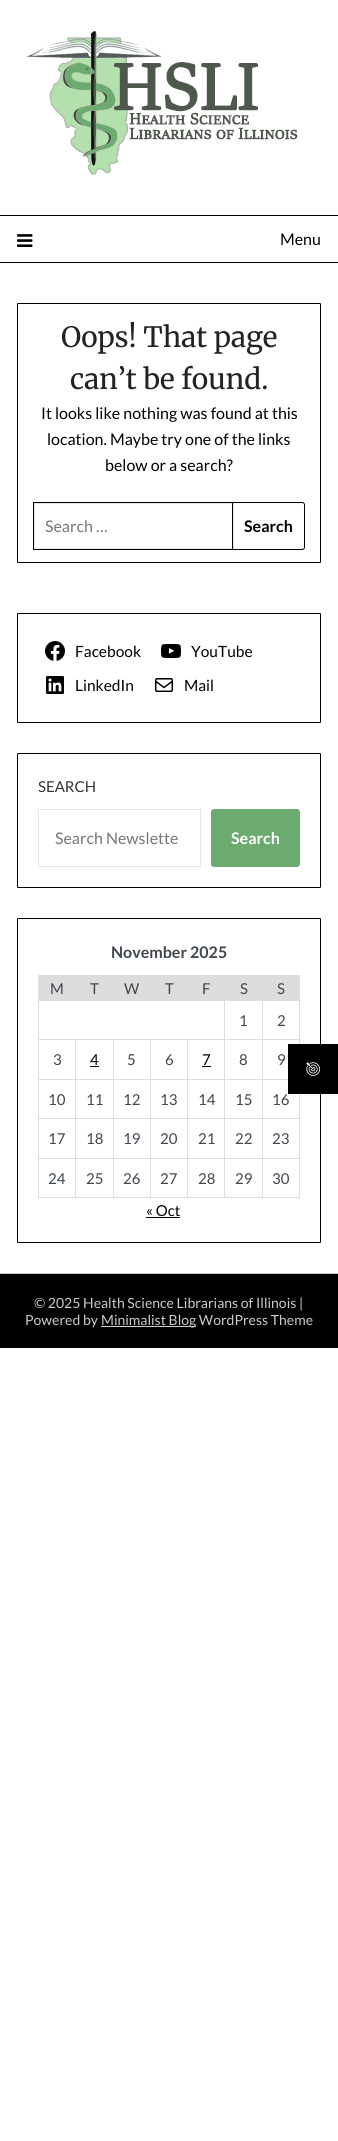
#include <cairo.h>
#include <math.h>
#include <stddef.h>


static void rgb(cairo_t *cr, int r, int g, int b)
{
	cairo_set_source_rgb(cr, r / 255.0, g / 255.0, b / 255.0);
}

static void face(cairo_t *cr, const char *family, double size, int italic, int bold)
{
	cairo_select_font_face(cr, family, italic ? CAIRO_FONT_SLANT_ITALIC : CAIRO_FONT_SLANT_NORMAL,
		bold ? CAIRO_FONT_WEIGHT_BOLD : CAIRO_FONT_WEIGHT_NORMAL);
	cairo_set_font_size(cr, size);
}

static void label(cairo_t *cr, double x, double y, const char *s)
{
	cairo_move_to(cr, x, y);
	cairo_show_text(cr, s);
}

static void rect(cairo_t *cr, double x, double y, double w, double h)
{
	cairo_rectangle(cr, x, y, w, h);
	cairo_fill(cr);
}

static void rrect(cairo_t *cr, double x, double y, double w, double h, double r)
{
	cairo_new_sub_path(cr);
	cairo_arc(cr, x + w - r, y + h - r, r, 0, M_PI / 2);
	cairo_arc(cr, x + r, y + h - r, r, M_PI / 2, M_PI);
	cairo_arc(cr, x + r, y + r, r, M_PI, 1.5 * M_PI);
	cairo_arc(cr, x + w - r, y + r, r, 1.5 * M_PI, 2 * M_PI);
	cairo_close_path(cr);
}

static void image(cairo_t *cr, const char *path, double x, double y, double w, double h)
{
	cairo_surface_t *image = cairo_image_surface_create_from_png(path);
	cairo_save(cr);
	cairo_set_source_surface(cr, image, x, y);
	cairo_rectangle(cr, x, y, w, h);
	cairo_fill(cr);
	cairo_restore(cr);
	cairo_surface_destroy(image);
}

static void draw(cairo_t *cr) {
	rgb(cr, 255, 255, 255);
	cairo_paint(cr);
	image(cr, "image0.png", 26, 30, 272, 145);
	rgb(cr, 0, 0, 0);
	rect(cr, 0, 215, 338, 1);
	rect(cr, 0, 262, 338, 1);
	image(cr, "image1.png", 17, 234, 16, 13);
	face(cr, "Lato", 16, 0, 0);
	label(cr, 280, 245, "Menu");
	rrect(cr, 17.5, 303.5, 303, 259, 0.5);
	cairo_set_line_width(cr, 1);
	cairo_stroke(cr);
	face(cr, "Merriweather", 28, 0, 0);
	rgb(cr, 34, 34, 34);
	label(cr, 61, 347, "Oops! That page");
	label(cr, 70, 389, "can’t be found.");
	face(cr, "Lato", 16, 0, 0);
	rgb(cr, 0, 0, 0);
	label(cr, 41, 419, "It looks like nothing was found at this");
	label(cr, 47, 445, "location. Maybe try one of the links");
	label(cr, 105, 471, "below or a search?");
	rect(cr, 33, 502, 201, 1);
	rect(cr, 33, 549, 201, 1);
	rect(cr, 33, 502, 1, 48);
	cairo_rectangle(cr, 34.5, 503.5, 199, 45);
	rgb(cr, 229, 230, 233);
	cairo_stroke(cr);
	rgb(cr, 117, 117, 117);
	label(cr, 45, 532, "Search …");
	cairo_new_path(cr);
	cairo_move_to(cr, 232.5, 502.5);
	cairo_line_to(cr, 302, 502.5);
	cairo_curve_to(cr, 303.5, 502.5, 304.5, 503.5, 304.5, 505);
	cairo_line_to(cr, 304.5, 547);
	cairo_curve_to(cr, 304.5, 548.5, 303.5, 549.5, 302, 549.5);
	cairo_line_to(cr, 232.5, 549.5);
	cairo_close_path(cr);
	rgb(cr, 0, 0, 0);
	cairo_stroke(cr);
	face(cr, "Lato", 16, 0, 1);
	label(cr, 244, 532, "Search");
	rrect(cr, 17.5, 613.5, 303, 109, 0.5);
	cairo_stroke(cr);
	image(cr, "image2.png", 45, 641, 20, 20);
	face(cr, "Lato", 15.5, 0, 0);
	label(cr, 75, 657, "Facebook");
	image(cr, "image3.png", 161, 644, 20, 14);
	label(cr, 191, 657, "YouTube");
	image(cr, "image4.png", 46, 676, 18, 18);
	label(cr, 75, 691, "LinkedIn");
	image(cr, "image5.png", 155, 678, 18, 14);
	label(cr, 184, 691, "Mail");
	rrect(cr, 17.5, 753.5, 303, 134, 0.5);
	cairo_stroke(cr);
	face(cr, "Lato", 15, 0, 0);
	rgb(cr, 51, 51, 51);
	label(cr, 38, 792, "SEARCH");
	cairo_rectangle(cr, 38.5, 809.5, 162, 57);
	rgb(cr, 229, 230, 233);
	cairo_stroke(cr);
	face(cr, "Lato", 16, 0, 0);
	rgb(cr, 117, 117, 117);
	label(cr, 55, 844, "Search Newslette");
	rgb(cr, 108, 171, 112);
	rrect(cr, 211, 809, 89, 58, 3);
	cairo_fill(cr);
	face(cr, "Lato", 16, 0, 1);
	rgb(cr, 255, 255, 255);
	label(cr, 231, 844, "Search");
	rrect(cr, 17.5, 918.5, 303, 324, 0.5);
	rgb(cr, 0, 0, 0);
	cairo_stroke(cr);
	rgb(cr, 64, 70, 77);
	label(cr, 111, 958, "November 2025");
	rgb(cr, 221, 221, 221);
	rect(cr, 38, 975, 262, 25);
	face(cr, "Lato", 15, 0, 0);
	rgb(cr, 64, 70, 77);
	label(cr, 50, 994, "M");
	label(cr, 90, 994, "T");
	label(cr, 124, 994, "W");
	label(cr, 165, 994, "T");
	label(cr, 202, 994, "F");
	label(cr, 240, 994, "S");
	label(cr, 277, 994, "S");
	rgb(cr, 221, 221, 221);
	rect(cr, 262, 1000, 38, 1);
	rect(cr, 262, 1039, 38, 1);
	rect(cr, 262, 1079, 26, 1);
	rect(cr, 262, 1118, 38, 1);
	rect(cr, 262, 1158, 38, 1);
	rect(cr, 299, 1158, 1, 40);
	rect(cr, 262, 1197, 38, 1);
	rect(cr, 262, 1158, 1, 40);
	rect(cr, 224, 1158, 39, 1);
	rect(cr, 262, 1118, 1, 41);
	rect(cr, 224, 1118, 39, 1);
	rect(cr, 262, 1079, 1, 40);
	rect(cr, 224, 1079, 39, 1);
	rect(cr, 262, 1039, 1, 41);
	rect(cr, 224, 1039, 39, 1);
	rect(cr, 262, 1000, 1, 40);
	rect(cr, 224, 1000, 39, 1);
	rect(cr, 224, 1197, 39, 1);
	rect(cr, 224, 1158, 1, 40);
	rect(cr, 187, 1158, 38, 1);
	rect(cr, 224, 1118, 1, 41);
	rect(cr, 187, 1118, 38, 1);
	rect(cr, 224, 1079, 1, 40);
	rect(cr, 187, 1079, 38, 1);
	rect(cr, 224, 1039, 1, 41);
	rect(cr, 187, 1039, 38, 1);
	rect(cr, 224, 1000, 1, 40);
	rect(cr, 38, 1000, 187, 1);
	rect(cr, 187, 1197, 38, 1);
	rect(cr, 187, 1158, 1, 40);
	rect(cr, 150, 1158, 38, 1);
	rect(cr, 187, 1118, 1, 41);
	rect(cr, 150, 1118, 38, 1);
	rect(cr, 187, 1079, 1, 40);
	rect(cr, 150, 1079, 38, 1);
	rect(cr, 187, 1039, 1, 41);
	rect(cr, 150, 1039, 38, 1);
	rect(cr, 150, 1197, 38, 1);
	rect(cr, 150, 1158, 1, 40);
	rect(cr, 113, 1158, 38, 1);
	rect(cr, 150, 1118, 1, 41);
	rect(cr, 113, 1118, 38, 1);
	rect(cr, 150, 1079, 1, 40);
	rect(cr, 113, 1079, 38, 1);
	rect(cr, 150, 1039, 1, 41);
	rect(cr, 113, 1039, 38, 1);
	rect(cr, 113, 1197, 38, 1);
	rect(cr, 113, 1158, 1, 40);
	rect(cr, 75, 1158, 39, 1);
	rect(cr, 113, 1118, 1, 41);
	rect(cr, 75, 1118, 39, 1);
	rect(cr, 113, 1079, 1, 40);
	rect(cr, 75, 1079, 39, 1);
	rect(cr, 113, 1039, 1, 41);
	rect(cr, 75, 1039, 39, 1);
	rect(cr, 75, 1197, 39, 1);
	rect(cr, 75, 1158, 1, 40);
	rect(cr, 38, 1158, 38, 1);
	rect(cr, 75, 1118, 1, 41);
	rect(cr, 38, 1118, 38, 1);
	rect(cr, 75, 1079, 1, 40);
	rect(cr, 38, 1079, 38, 1);
	rect(cr, 75, 1039, 1, 41);
	rect(cr, 38, 1039, 38, 1);
	rect(cr, 38, 1197, 38, 1);
	rect(cr, 38, 1158, 1, 40);
	rect(cr, 38, 1118, 1, 41);
	rect(cr, 38, 1079, 1, 40);
	rect(cr, 38, 1039, 1, 41);
	rect(cr, 38, 1000, 1, 40);
	rgb(cr, 64, 70, 77);
	label(cr, 239, 1026, "1");
	rgb(cr, 221, 221, 221);
	rect(cr, 299, 1039, 1, 5);
	rect(cr, 299, 1000, 1, 40);
	rgb(cr, 64, 70, 77);
	label(cr, 277, 1026, "2");
	label(cr, 53, 1065, "3");
	rgb(cr, 0, 0, 0);
	label(cr, 90, 1065, "4");
	rect(cr, 90, 1066, 9, 1);
	rgb(cr, 64, 70, 77);
	label(cr, 127, 1065, "5");
	label(cr, 165, 1065, "6");
	rgb(cr, 0, 0, 0);
	label(cr, 202, 1065, "7");
	rect(cr, 202, 1066, 9, 1);
	rgb(cr, 64, 70, 77);
	label(cr, 239, 1065, "8");
	label(cr, 277, 1065, "9");
	label(cr, 48, 1105, "10");
	label(cr, 86, 1105, "11");
	label(cr, 123, 1105, "12");
	label(cr, 160, 1105, "13");
	label(cr, 198, 1105, "14");
	label(cr, 235, 1105, "15");
	label(cr, 272, 1105, "16");
	label(cr, 48, 1144, "17");
	label(cr, 86, 1144, "18");
	label(cr, 123, 1144, "19");
	label(cr, 160, 1144, "20");
	label(cr, 198, 1144, "21");
	label(cr, 235, 1144, "22");
	rgb(cr, 221, 221, 221);
	rect(cr, 299, 1094, 1, 65);
	rgb(cr, 64, 70, 77);
	label(cr, 272, 1144, "23");
	label(cr, 48, 1184, "24");
	label(cr, 86, 1184, "25");
	label(cr, 123, 1184, "26");
	label(cr, 160, 1184, "27");
	label(cr, 198, 1184, "28");
	label(cr, 235, 1184, "29");
	label(cr, 272, 1184, "30");
	rgb(cr, 0, 0, 0);
	label(cr, 146, 1216, "« Oct");
	rect(cr, 146, 1217, 34, 1);
	rect(cr, 0, 1274, 338, 74);
	rgb(cr, 204, 204, 204);
	rect(cr, 0, 1273, 338, 1);
	face(cr, "Lato", 14, 0, 0);
	label(cr, 34, 1308, "© 2025 Health Science Librarians of Illinois |");
	label(cr, 25, 1325, "Powered by");
	rect(cr, 101, 1326, 95, 1);
	label(cr, 101, 1325, "Minimalist Blog WordPress Theme");
	rgb(cr, 0, 0, 0);
	rect(cr, 288, 1044, 50, 50);
	image(cr, "image6.png", 306, 1062, 14, 14);
}

int main(void) {
	cairo_surface_t *surface = cairo_image_surface_create(CAIRO_FORMAT_RGB24, 338, 2141);
	cairo_t *cr = cairo_create(surface);
	cairo_font_options_t *options = cairo_font_options_create();
	cairo_font_options_set_hint_metrics(options, CAIRO_HINT_METRICS_OFF);
	cairo_font_options_set_hint_style(options, CAIRO_HINT_STYLE_NONE);
	cairo_set_font_options(cr, options);
	cairo_set_miter_limit(cr, 4);
	draw(cr);
	cairo_surface_write_to_png(surface, "render.png");
	cairo_font_options_destroy(options);
	cairo_destroy(cr);
	cairo_surface_destroy(surface);
	return 0;
}
